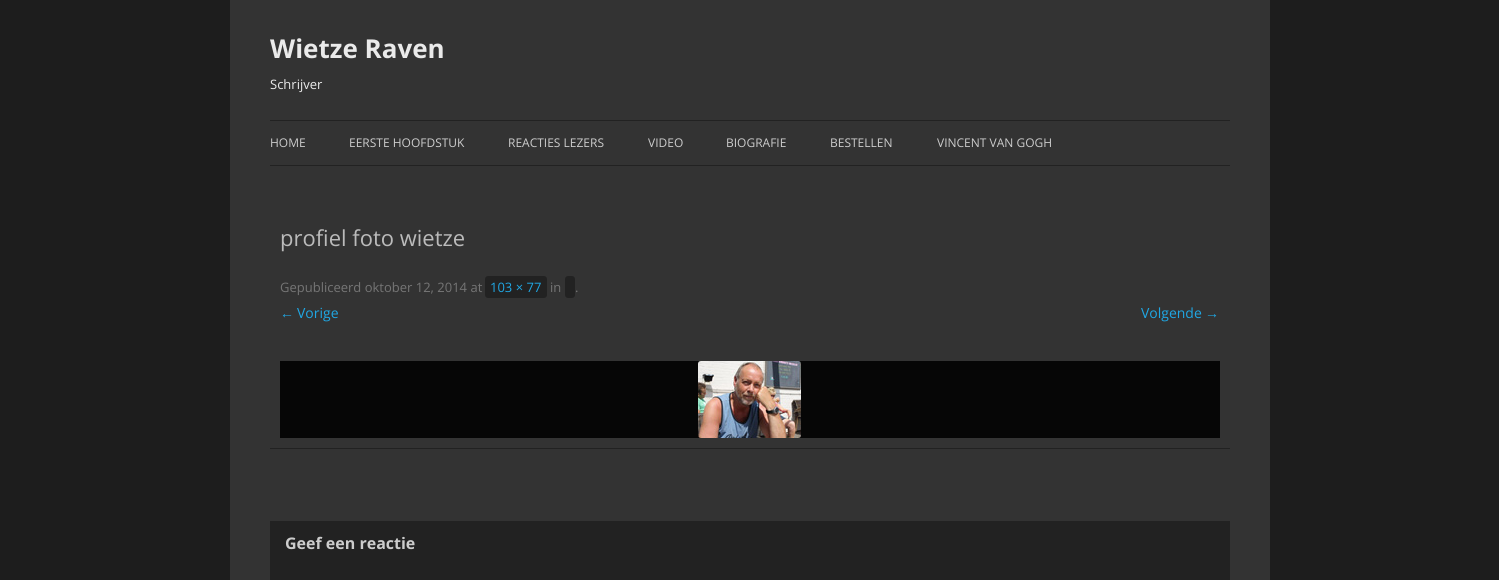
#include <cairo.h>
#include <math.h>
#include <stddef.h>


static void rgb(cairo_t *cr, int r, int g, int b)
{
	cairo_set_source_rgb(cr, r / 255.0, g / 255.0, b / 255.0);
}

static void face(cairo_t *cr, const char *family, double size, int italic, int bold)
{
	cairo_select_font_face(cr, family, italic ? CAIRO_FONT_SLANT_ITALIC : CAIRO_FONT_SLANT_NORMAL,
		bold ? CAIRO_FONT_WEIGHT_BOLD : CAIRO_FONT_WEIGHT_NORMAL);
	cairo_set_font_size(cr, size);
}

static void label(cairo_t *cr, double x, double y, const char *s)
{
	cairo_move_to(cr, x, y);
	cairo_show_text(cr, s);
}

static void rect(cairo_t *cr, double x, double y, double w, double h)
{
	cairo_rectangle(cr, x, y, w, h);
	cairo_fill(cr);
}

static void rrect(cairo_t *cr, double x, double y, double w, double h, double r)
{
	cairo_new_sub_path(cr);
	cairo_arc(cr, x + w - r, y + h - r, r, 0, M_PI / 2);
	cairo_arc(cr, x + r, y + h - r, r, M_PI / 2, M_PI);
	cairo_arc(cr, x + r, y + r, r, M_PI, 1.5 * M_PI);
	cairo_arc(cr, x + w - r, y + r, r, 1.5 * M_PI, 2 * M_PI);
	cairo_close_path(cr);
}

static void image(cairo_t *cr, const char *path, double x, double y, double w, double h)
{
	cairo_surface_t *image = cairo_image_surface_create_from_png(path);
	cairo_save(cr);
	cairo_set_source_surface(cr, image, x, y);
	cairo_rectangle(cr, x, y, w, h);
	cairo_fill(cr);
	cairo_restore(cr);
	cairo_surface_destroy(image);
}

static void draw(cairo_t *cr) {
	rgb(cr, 29, 29, 29);
	cairo_paint(cr);
	rgb(cr, 51, 51, 51);
	rect(cr, 230, 0, 1040, 580);
	face(cr, "Open Sans", 26, 0, 1);
	rgb(cr, 234, 234, 234);
	label(cr, 270, 58, "Wietze Raven");
	face(cr, "Open Sans", 13, 0, 0);
	label(cr, 270, 89, "Schrijver");
	rgb(cr, 34, 34, 34);
	rect(cr, 270, 120, 960, 1);
	rect(cr, 270, 165, 960, 1);
	face(cr, "Open Sans", 12, 0, 0);
	rgb(cr, 204, 204, 204);
	label(cr, 270, 147, "HOME");
	label(cr, 349, 147, "EERSTE HOOFDSTUK");
	label(cr, 508, 147, "REACTIES LEZERS");
	label(cr, 648, 147, "VIDEO");
	label(cr, 726, 147, "BIOGRAFIE");
	label(cr, 830, 147, "BESTELLEN");
	label(cr, 937, 147, "VINCENT VAN GOGH");
	rgb(cr, 34, 34, 34);
	rect(cr, 270, 448, 960, 1);
	face(cr, "Open Sans", 22, 0, 0);
	rgb(cr, 187, 187, 187);
	label(cr, 280, 246, "profiel foto wietze");
	face(cr, "Open Sans", 13, 0, 0);
	rgb(cr, 117, 117, 117);
	label(cr, 280, 292, "Gepubliceerd oktober 12, 2014 at");
	rgb(cr, 34, 34, 34);
	rrect(cr, 485, 276, 62, 22, 3);
	cairo_fill(cr);
	rgb(cr, 31, 167, 228);
	label(cr, 490, 292, "103 × 77");
	rgb(cr, 117, 117, 117);
	label(cr, 550, 292, "in");
	rgb(cr, 34, 34, 34);
	rrect(cr, 565, 276, 10, 22, 3);
	cairo_fill(cr);
	rgb(cr, 117, 117, 117);
	label(cr, 575, 292, ".");
	face(cr, "Liberation Sans", 14, 0, 0);
	rgb(cr, 31, 167, 228);
	label(cr, 280, 318, "←");
	face(cr, "Open Sans", 14, 0, 0);
	label(cr, 297, 318, "Vorige");
	label(cr, 1141, 318, "Volgende");
	face(cr, "Liberation Sans", 14, 0, 0);
	label(cr, 1205, 318, "→");
	rgb(cr, 6, 6, 6);
	rect(cr, 280, 361, 940, 77);
	image(cr, "image0.png", 698, 361, 103, 77);
	rgb(cr, 34, 34, 34);
	rect(cr, 270, 521, 960, 59);
	face(cr, "Open Sans", 16, 0, 1);
	rgb(cr, 204, 204, 204);
	label(cr, 285, 549, "Geef een reactie");
}

int main(void) {
	cairo_surface_t *surface = cairo_image_surface_create(CAIRO_FORMAT_RGB24, 1499, 580);
	cairo_t *cr = cairo_create(surface);
	cairo_font_options_t *options = cairo_font_options_create();
	cairo_font_options_set_hint_metrics(options, CAIRO_HINT_METRICS_OFF);
	cairo_font_options_set_hint_style(options, CAIRO_HINT_STYLE_NONE);
	cairo_set_font_options(cr, options);
	cairo_set_miter_limit(cr, 4);
	draw(cr);
	cairo_surface_write_to_png(surface, "render.png");
	cairo_font_options_destroy(options);
	cairo_destroy(cr);
	cairo_surface_destroy(surface);
	return 0;
}
